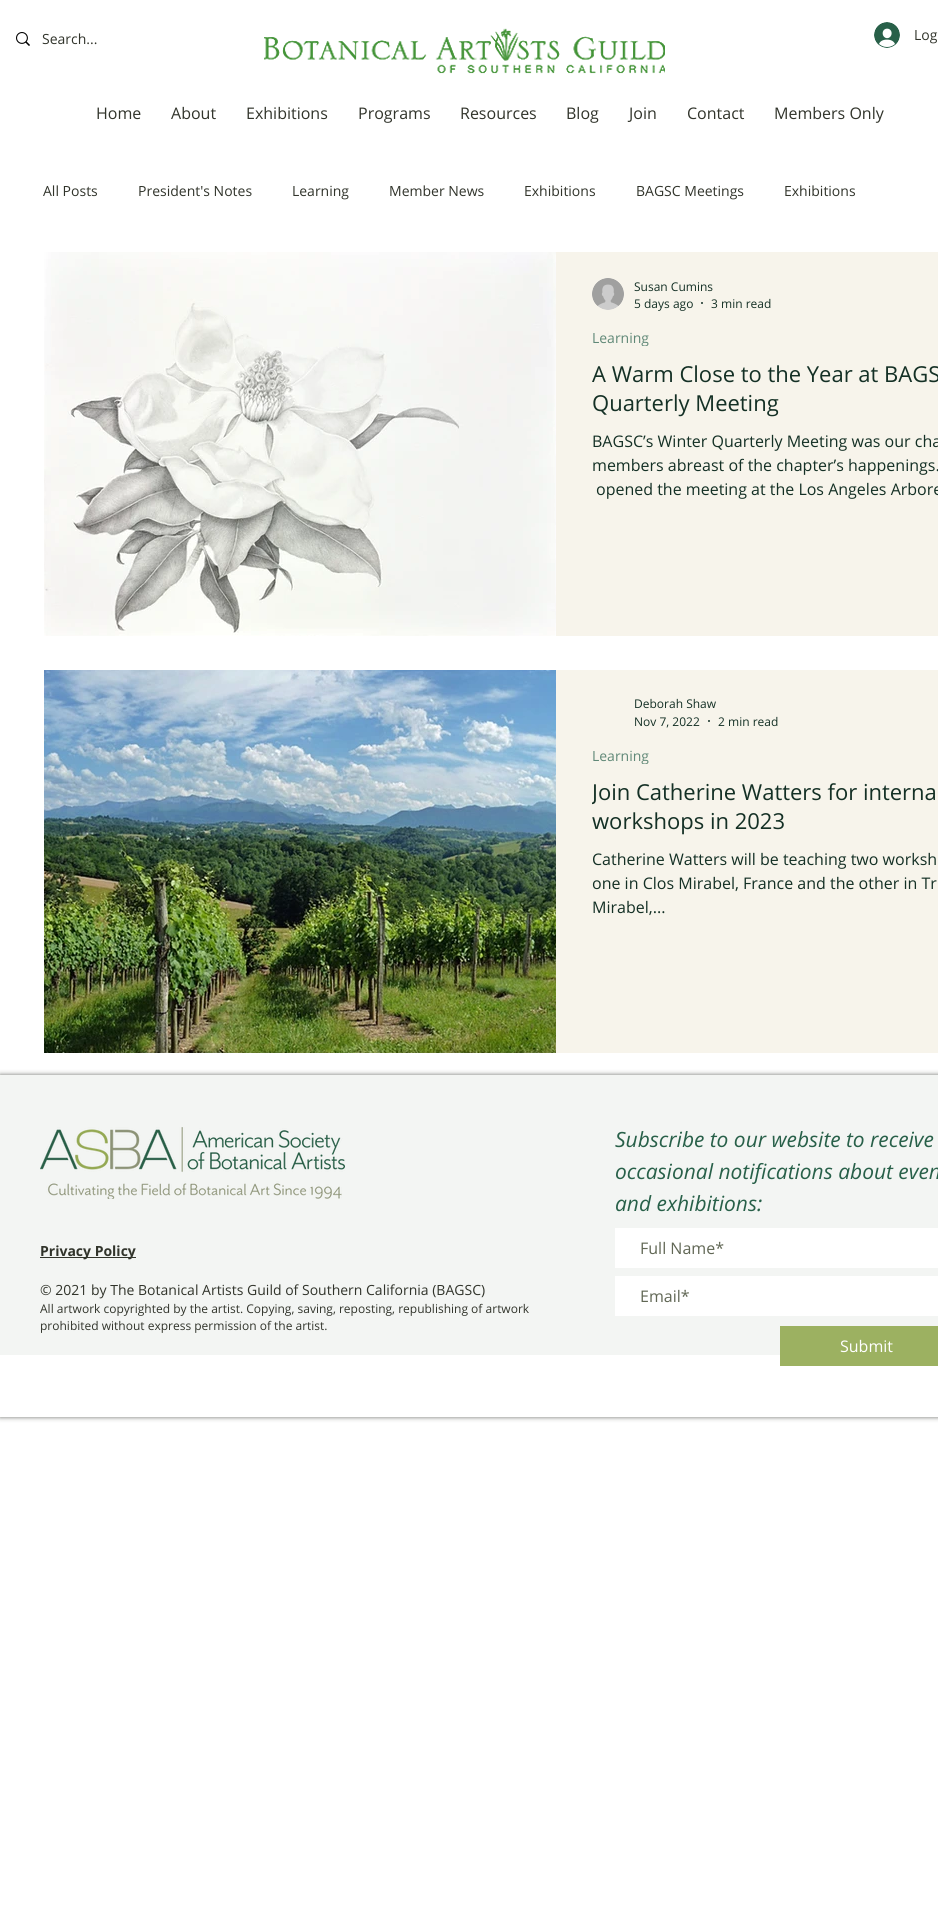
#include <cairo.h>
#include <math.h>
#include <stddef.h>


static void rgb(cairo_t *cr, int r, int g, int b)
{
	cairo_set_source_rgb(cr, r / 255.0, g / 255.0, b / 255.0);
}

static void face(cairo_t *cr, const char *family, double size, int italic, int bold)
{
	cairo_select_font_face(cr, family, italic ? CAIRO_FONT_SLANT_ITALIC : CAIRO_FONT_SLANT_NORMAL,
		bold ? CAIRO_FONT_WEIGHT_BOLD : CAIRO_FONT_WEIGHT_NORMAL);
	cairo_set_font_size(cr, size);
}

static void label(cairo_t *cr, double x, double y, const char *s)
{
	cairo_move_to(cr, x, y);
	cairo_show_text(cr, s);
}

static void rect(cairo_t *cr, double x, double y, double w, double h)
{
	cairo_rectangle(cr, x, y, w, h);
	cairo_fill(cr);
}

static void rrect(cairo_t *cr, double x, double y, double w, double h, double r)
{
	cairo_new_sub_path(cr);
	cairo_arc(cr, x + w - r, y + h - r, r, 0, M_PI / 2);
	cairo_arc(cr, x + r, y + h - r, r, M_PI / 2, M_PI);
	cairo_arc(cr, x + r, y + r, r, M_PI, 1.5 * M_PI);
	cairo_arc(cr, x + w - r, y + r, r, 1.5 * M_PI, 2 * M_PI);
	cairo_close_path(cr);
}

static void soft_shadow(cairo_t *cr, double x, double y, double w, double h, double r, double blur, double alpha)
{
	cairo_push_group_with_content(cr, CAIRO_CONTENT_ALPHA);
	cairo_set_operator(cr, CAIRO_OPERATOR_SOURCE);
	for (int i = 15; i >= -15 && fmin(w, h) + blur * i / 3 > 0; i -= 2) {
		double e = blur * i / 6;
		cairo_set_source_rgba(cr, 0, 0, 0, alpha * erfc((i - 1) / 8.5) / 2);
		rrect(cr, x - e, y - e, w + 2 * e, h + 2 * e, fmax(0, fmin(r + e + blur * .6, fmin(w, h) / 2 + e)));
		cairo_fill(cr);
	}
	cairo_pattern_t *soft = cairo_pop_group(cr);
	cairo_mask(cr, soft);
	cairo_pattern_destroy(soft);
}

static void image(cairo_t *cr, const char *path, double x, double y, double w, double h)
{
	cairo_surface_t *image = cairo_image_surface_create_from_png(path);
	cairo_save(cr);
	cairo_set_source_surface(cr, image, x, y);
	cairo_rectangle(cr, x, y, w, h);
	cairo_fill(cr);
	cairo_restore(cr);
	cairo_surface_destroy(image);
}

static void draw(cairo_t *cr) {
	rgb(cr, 255, 255, 255);
	cairo_paint(cr);
	image(cr, "image0.png", 16, 32, 14, 14);
	face(cr, "Open Sans", 14, 0, 0);
	rgb(cr, 49, 52, 43);
	label(cr, 42, 44, "Search...");
	image(cr, "image1.png", 264, 28, 401, 46);
	image(cr, "image2.png", 874, 22, 26, 26);
	label(cr, 914, 40, "Log");
	face(cr, "Open Sans", 16, 0, 0);
	label(cr, 96, 119, "Home");
	label(cr, 171, 119, "About");
	label(cr, 246, 119, "Exhibitions");
	label(cr, 358, 119, "Programs");
	label(cr, 460, 119, "Resources");
	label(cr, 566, 119, "Blog");
	label(cr, 629, 119, "Join");
	label(cr, 687, 119, "Contact");
	label(cr, 774, 119, "Members Only");
	face(cr, "Open Sans", 14, 0, 0);
	label(cr, 43, 196, "All Posts");
	label(cr, 138, 196, "President's Notes");
	label(cr, 292, 196, "Learning");
	label(cr, 389, 196, "Member News");
	label(cr, 524, 196, "Exhibitions");
	label(cr, 636, 196, "BAGSC Meetings");
	label(cr, 784, 196, "Exhibitions");
	image(cr, "image3.png", 44, 252, 512, 384);
	rgb(cr, 247, 244, 235);
	rect(cr, 556, 252, 382, 384);
	image(cr, "image4.png", 592, 278, 32, 32);
	face(cr, "Open Sans", 12, 0, 0);
	rgb(cr, 20, 48, 37);
	label(cr, 634, 291, "Susan Cumins");
	label(cr, 634, 308, "5 days ago");
	cairo_new_path(cr);
	cairo_arc(cr, 702, 303, 1, 0, 2 * M_PI);
	cairo_fill(cr);
	label(cr, 711, 308, "3 min read");
	cairo_save(cr);
	cairo_rectangle(cr, 592, 329, 57, 17);
	cairo_clip(cr);
	face(cr, "Open Sans", 14, 0, 0);
	rgb(cr, 96, 136, 119);
	label(cr, 592, 343, "Learning");
	cairo_restore(cr);
	face(cr, "Open Sans", 22, 0, 0);
	label(cr, 592, 382, "A Warm Close to the Year at BAGS");
	label(cr, 592, 411, "Quarterly Meeting");
	face(cr, "Open Sans", 16, 0, 0);
	label(cr, 592, 447, "BAGSC’s Winter Quarterly Meeting was our cha");
	label(cr, 592, 471, "members abreast of the chapter’s happenings.");
	label(cr, 596, 495, "opened the meeting at the Los Angeles Arbore");
	image(cr, "image5.png", 44, 670, 512, 383);
	rgb(cr, 247, 244, 235);
	rect(cr, 556, 670, 382, 383);
	face(cr, "Open Sans", 12, 0, 0);
	rgb(cr, 20, 48, 37);
	label(cr, 634, 708, "Deborah Shaw");
	label(cr, 634, 726, "Nov 7, 2022");
	cairo_new_path(cr);
	cairo_arc(cr, 709, 721, 1, 0, 2 * M_PI);
	cairo_fill(cr);
	label(cr, 718, 726, "2 min read");
	cairo_save(cr);
	cairo_rectangle(cr, 592, 747, 57, 17);
	cairo_clip(cr);
	face(cr, "Open Sans", 14, 0, 0);
	rgb(cr, 96, 136, 119);
	label(cr, 592, 761, "Learning");
	cairo_restore(cr);
	cairo_save(cr);
	cairo_rectangle(cr, 592, 777, 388, 58);
	cairo_clip(cr);
	face(cr, "Open Sans", 22, 0, 0);
	label(cr, 592, 800, "Join Catherine Watters for interna");
	cairo_restore(cr);
	face(cr, "Open Sans", 22, 0, 0);
	label(cr, 592, 829, "workshops in 2023");
	face(cr, "Open Sans", 16, 0, 0);
	label(cr, 592, 865, "Catherine Watters will be teaching two worksh");
	label(cr, 592, 889, "one in Clos Mirabel, France and the other in Tr");
	label(cr, 592, 913, "Mirabel,...");
	cairo_save(cr);
	cairo_set_fill_rule(cr, CAIRO_FILL_RULE_EVEN_ODD);
	cairo_new_path(cr);
	cairo_move_to(cr, 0, 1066);
	cairo_line_to(cr, 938, 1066);
	cairo_line_to(cr, 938, 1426);
	cairo_line_to(cr, 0, 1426);
	cairo_close_path(cr);
	cairo_move_to(cr, 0, 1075);
	cairo_line_to(cr, 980, 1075);
	cairo_line_to(cr, 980, 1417);
	cairo_line_to(cr, 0, 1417);
	cairo_close_path(cr);
	cairo_clip(cr);
	rgb(cr, 48, 51, 43);
	soft_shadow(cr, 0, 1075, 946, 342, 0, 2.5, 0.7);
	cairo_restore(cr);
	rgb(cr, 243, 245, 243);
	rect(cr, 0, 1075, 938, 280);
	image(cr, "image6.png", 40, 1127, 305, 72);
	rgb(cr, 49, 52, 43);
	rect(cr, 40, 1257, 96, 1);
	face(cr, "Open Sans", 14, 0, 1);
	label(cr, 40, 1256, "Privacy Policy");
	face(cr, "Open Sans", 14, 0, 0);
	label(cr, 40, 1295, "© 2021 by The Botanical Artists Guild of Southern California (BAGSC)");
	face(cr, "Open Sans", 12, 0, 0);
	label(cr, 40, 1313, "All artwork copyrighted by the artist. Copying, saving, reposting, republishing of artwork");
	label(cr, 40, 1330, "prohibited without express permission of the artist.");
	face(cr, "Open Sans", 21, 1, 0);
	rgb(cr, 40, 96, 73);
	label(cr, 615, 1147, "Subscribe to our website to receive");
	label(cr, 615, 1179, "occasional notifications about even");
	label(cr, 615, 1211, "and exhibitions:");
	rgb(cr, 255, 255, 255);
	rect(cr, 615, 1228, 323, 40);
	face(cr, "Open Sans", 16, 0, 0);
	rgb(cr, 97, 103, 85);
	label(cr, 640, 1254, "Full Name*");
	rgb(cr, 255, 255, 255);
	rect(cr, 615, 1276, 323, 40);
	rgb(cr, 97, 103, 85);
	label(cr, 640, 1302, "Email*");
	rgb(cr, 156, 177, 97);
	rect(cr, 780, 1326, 158, 40);
	rgb(cr, 255, 255, 255);
	label(cr, 840, 1352, "Submit");
}

int main(void) {
	cairo_surface_t *surface = cairo_image_surface_create(CAIRO_FORMAT_RGB24, 938, 1927);
	cairo_t *cr = cairo_create(surface);
	cairo_font_options_t *options = cairo_font_options_create();
	cairo_font_options_set_hint_metrics(options, CAIRO_HINT_METRICS_OFF);
	cairo_font_options_set_hint_style(options, CAIRO_HINT_STYLE_NONE);
	cairo_set_font_options(cr, options);
	cairo_set_miter_limit(cr, 4);
	draw(cr);
	cairo_surface_write_to_png(surface, "render.png");
	cairo_font_options_destroy(options);
	cairo_destroy(cr);
	cairo_surface_destroy(surface);
	return 0;
}
